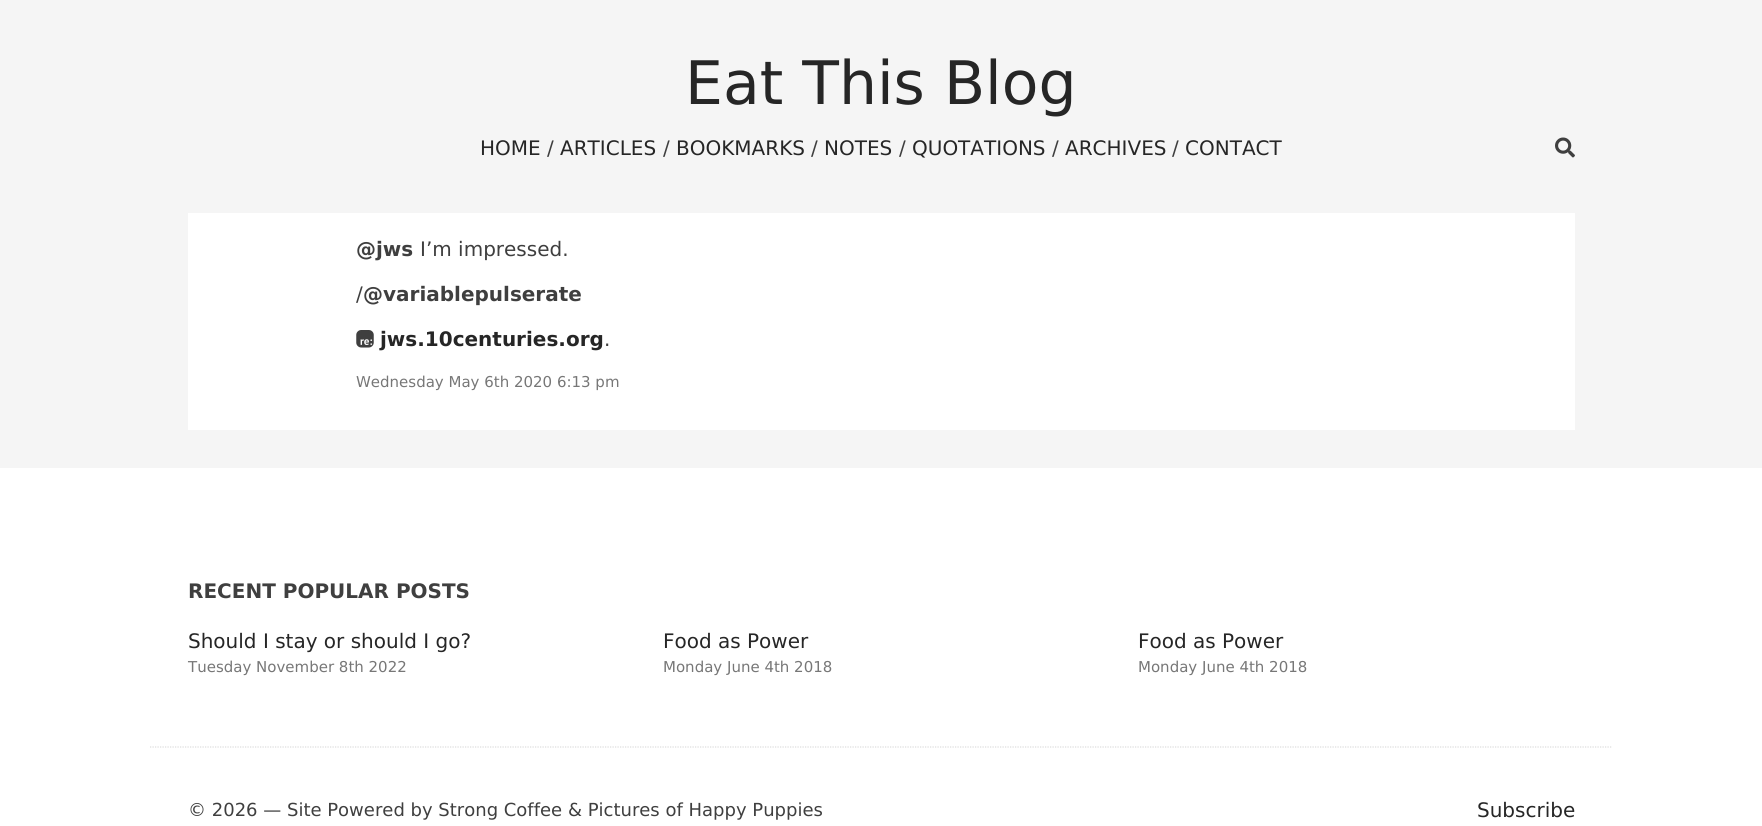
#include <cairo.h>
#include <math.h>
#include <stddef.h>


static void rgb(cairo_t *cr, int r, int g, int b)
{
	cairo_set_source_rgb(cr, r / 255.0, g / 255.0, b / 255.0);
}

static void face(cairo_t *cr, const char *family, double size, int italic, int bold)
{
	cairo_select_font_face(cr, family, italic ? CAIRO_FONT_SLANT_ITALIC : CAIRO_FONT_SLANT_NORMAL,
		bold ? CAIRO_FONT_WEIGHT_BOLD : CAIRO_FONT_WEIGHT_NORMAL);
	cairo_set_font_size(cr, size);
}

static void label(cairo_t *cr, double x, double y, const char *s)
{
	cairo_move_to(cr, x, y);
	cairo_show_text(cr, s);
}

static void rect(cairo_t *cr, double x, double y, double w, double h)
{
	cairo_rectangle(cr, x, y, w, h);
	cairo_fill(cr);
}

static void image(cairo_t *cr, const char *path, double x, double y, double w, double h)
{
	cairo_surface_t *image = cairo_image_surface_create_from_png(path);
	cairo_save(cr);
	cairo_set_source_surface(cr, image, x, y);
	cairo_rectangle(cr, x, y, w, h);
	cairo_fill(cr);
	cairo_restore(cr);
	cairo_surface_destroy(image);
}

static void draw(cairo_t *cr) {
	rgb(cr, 245, 245, 245);
	cairo_paint(cr);
	face(cr, "DejaVu Sans", 60, 0, 0);
	rgb(cr, 38, 38, 38);
	label(cr, 685, 104, "Eat This Blog");
	face(cr, "DejaVu Sans", 20, 0, 0);
	label(cr, 480, 155, "HOME");
	rgb(cr, 63, 63, 63);
	label(cr, 547, 155, "/");
	rgb(cr, 38, 38, 38);
	label(cr, 560, 155, "ARTICLES");
	rgb(cr, 63, 63, 63);
	label(cr, 663, 155, "/");
	rgb(cr, 38, 38, 38);
	label(cr, 676, 155, "BOOKMARKS");
	rgb(cr, 63, 63, 63);
	label(cr, 811, 155, "/");
	rgb(cr, 38, 38, 38);
	label(cr, 824, 155, "NOTES");
	rgb(cr, 63, 63, 63);
	label(cr, 899, 155, "/");
	rgb(cr, 38, 38, 38);
	label(cr, 912, 155, "QUOTATIONS");
	rgb(cr, 63, 63, 63);
	label(cr, 1052, 155, "/");
	rgb(cr, 38, 38, 38);
	label(cr, 1065, 155, "ARCHIVES");
	rgb(cr, 63, 63, 63);
	label(cr, 1172, 155, "/");
	rgb(cr, 38, 38, 38);
	label(cr, 1185, 155, "CONTACT");
	image(cr, "image0.png", 1555, 137, 20, 21);
	rgb(cr, 255, 255, 255);
	rect(cr, 188, 213, 1387, 217);
	face(cr, "DejaVu Sans", 20, 0, 1);
	rgb(cr, 63, 63, 63);
	label(cr, 356, 256, "@jws");
	face(cr, "DejaVu Sans", 20, 0, 0);
	label(cr, 420, 256, "I’m impressed.");
	label(cr, 356, 301, "/");
	face(cr, "DejaVu Sans", 20, 0, 1);
	label(cr, 363, 301, "@variablepulserate");
	image(cr, "image1.png", 356, 330, 18, 18);
	rgb(cr, 38, 38, 38);
	label(cr, 380, 346, "jws.10centuries.org");
	face(cr, "DejaVu Sans", 20, 0, 0);
	rgb(cr, 63, 63, 63);
	label(cr, 604, 346, ".");
	face(cr, "DejaVu Sans", 15, 0, 0);
	rgb(cr, 119, 119, 119);
	label(cr, 356, 387, "Wednesday May 6th 2020 6:13 pm");
	rgb(cr, 255, 255, 255);
	rect(cr, 0, 468, 1762, 358);
	cairo_new_path(cr);
	cairo_move_to(cr, 150, 747);
	cairo_line_to(cr, 1612.5, 747);
	rgb(cr, 220, 220, 220);
	cairo_set_line_width(cr, 1.2);
	cairo_set_dash(cr, (double[]){1.25, 1.25}, 2, 0);
	cairo_stroke(cr);
	face(cr, "DejaVu Sans", 20, 0, 1);
	rgb(cr, 63, 63, 63);
	label(cr, 188, 598, "RECENT POPULAR POSTS");
	face(cr, "DejaVu Sans", 20, 0, 0);
	rgb(cr, 38, 38, 38);
	label(cr, 188, 648, "Should I stay or should I go?");
	face(cr, "DejaVu Sans", 15, 0, 0);
	rgb(cr, 119, 119, 119);
	label(cr, 188, 672, "Tuesday November 8th 2022");
	face(cr, "DejaVu Sans", 20, 0, 0);
	rgb(cr, 38, 38, 38);
	label(cr, 663, 648, "Food as Power");
	face(cr, "DejaVu Sans", 15, 0, 0);
	rgb(cr, 119, 119, 119);
	label(cr, 663, 672, "Monday June 4th 2018");
	face(cr, "DejaVu Sans", 20, 0, 0);
	rgb(cr, 38, 38, 38);
	label(cr, 1138, 648, "Food as Power");
	face(cr, "DejaVu Sans", 15, 0, 0);
	rgb(cr, 119, 119, 119);
	label(cr, 1138, 672, "Monday June 4th 2018");
	face(cr, "DejaVu Sans", 18, 0, 0);
	rgb(cr, 63, 63, 63);
	label(cr, 188, 816, "© 2026 — Site Powered by Strong Coffee & Pictures of Happy Puppies");
	face(cr, "DejaVu Sans", 20, 0, 0);
	rgb(cr, 38, 38, 38);
	label(cr, 1477, 817, "Subscribe");
}

int main(void) {
	cairo_surface_t *surface = cairo_image_surface_create(CAIRO_FORMAT_RGB24, 1762, 826);
	cairo_t *cr = cairo_create(surface);
	cairo_font_options_t *options = cairo_font_options_create();
	cairo_font_options_set_hint_metrics(options, CAIRO_HINT_METRICS_OFF);
	cairo_font_options_set_hint_style(options, CAIRO_HINT_STYLE_NONE);
	cairo_set_font_options(cr, options);
	cairo_set_miter_limit(cr, 4);
	draw(cr);
	cairo_surface_write_to_png(surface, "render.png");
	cairo_font_options_destroy(options);
	cairo_destroy(cr);
	cairo_surface_destroy(surface);
	return 0;
}
